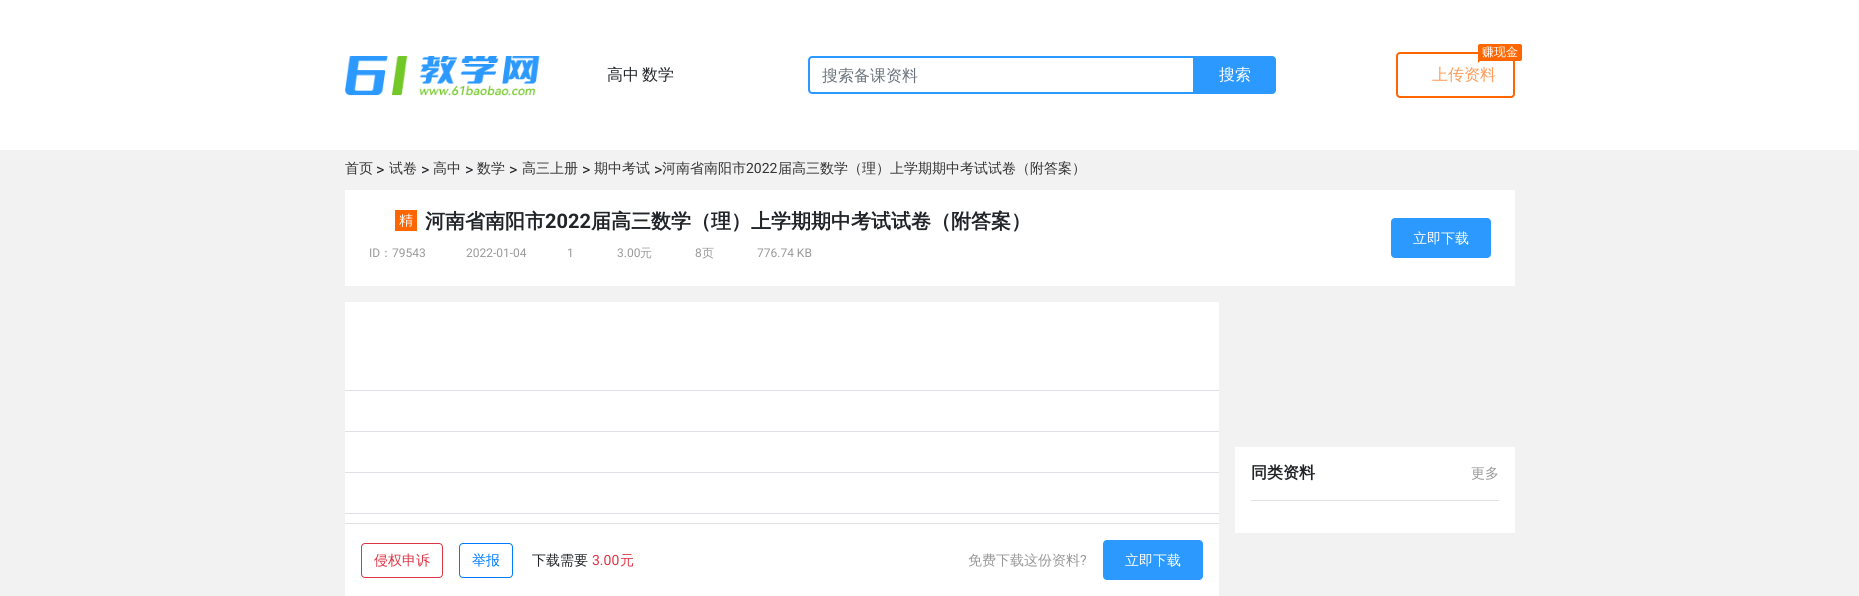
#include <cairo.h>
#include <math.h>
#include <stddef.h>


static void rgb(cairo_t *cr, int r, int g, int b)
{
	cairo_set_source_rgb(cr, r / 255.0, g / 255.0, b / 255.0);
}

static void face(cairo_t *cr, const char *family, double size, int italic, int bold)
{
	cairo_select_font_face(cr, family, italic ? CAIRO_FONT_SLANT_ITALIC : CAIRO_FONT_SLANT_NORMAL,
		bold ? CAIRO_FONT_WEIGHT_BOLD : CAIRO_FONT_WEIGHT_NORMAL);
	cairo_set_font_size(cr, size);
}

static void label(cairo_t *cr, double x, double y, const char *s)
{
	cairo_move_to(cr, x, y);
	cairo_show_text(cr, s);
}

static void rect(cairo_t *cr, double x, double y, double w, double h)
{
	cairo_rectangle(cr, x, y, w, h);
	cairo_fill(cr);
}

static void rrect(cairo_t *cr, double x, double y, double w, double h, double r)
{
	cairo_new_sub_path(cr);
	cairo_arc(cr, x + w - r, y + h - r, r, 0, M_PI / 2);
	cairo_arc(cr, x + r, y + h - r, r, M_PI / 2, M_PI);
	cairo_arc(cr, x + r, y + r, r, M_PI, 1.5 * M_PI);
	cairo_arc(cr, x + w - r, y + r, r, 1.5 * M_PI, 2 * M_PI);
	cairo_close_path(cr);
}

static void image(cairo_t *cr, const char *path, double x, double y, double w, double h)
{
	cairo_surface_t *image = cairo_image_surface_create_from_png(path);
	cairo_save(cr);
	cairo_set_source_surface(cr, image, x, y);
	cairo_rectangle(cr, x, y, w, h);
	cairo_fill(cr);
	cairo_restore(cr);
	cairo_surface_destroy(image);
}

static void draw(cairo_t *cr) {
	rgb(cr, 242, 242, 242);
	cairo_paint(cr);
	rgb(cr, 255, 255, 255);
	rect(cr, 0, 0, 1859, 150);
	image(cr, "image0.png", 345, 56, 195, 40);
	face(cr, "WenQuanYi Zen Hei Medium", 16, 0, 0);
	rgb(cr, 33, 37, 41);
	label(cr, 607, 80, "高中");
	label(cr, 642, 80, "数学");
	cairo_new_path(cr);
	cairo_move_to(cr, 812, 57);
	cairo_line_to(cr, 1194, 57);
	cairo_line_to(cr, 1194, 93);
	cairo_line_to(cr, 812, 93);
	cairo_curve_to(cr, 810.5, 93, 809, 91.5, 809, 90);
	cairo_line_to(cr, 809, 60);
	cairo_curve_to(cr, 809, 58.5, 810.5, 57, 812, 57);
	cairo_close_path(cr);
	rgb(cr, 43, 153, 255);
	cairo_stroke(cr);
	rgb(cr, 108, 117, 125);
	label(cr, 822, 81, "搜索备课资料");
	rgb(cr, 43, 153, 255);
	cairo_new_path(cr);
	cairo_move_to(cr, 1194.5, 56.5);
	cairo_line_to(cr, 1272, 56.5);
	cairo_curve_to(cr, 1274, 56.5, 1275.5, 58, 1275.5, 60);
	cairo_line_to(cr, 1275.5, 90);
	cairo_curve_to(cr, 1275.5, 92, 1274, 93.5, 1272, 93.5);
	cairo_line_to(cr, 1194.5, 93.5);
	cairo_close_path(cr);
	cairo_fill_preserve(cr);
	cairo_set_line_width(cr, 1);
	cairo_stroke(cr);
	rgb(cr, 255, 255, 255);
	label(cr, 1219, 80, "搜索");
	rrect(cr, 1397, 53, 117, 44, 3);
	rgb(cr, 255, 102, 0);
	cairo_set_line_width(cr, 2);
	cairo_stroke(cr);
	rrect(cr, 1478, 44, 44, 17, 2);
	cairo_fill(cr);
	face(cr, "WenQuanYi Zen Hei Medium", 12, 0, 0);
	rgb(cr, 255, 255, 255);
	label(cr, 1482, 56, "赚现金");
	rgb(cr, 255, 102, 0);
	cairo_new_path(cr);
	cairo_move_to(cr, 1478, 63);
	cairo_line_to(cr, 1478, 57);
	cairo_line_to(cr, 1481, 60);
	cairo_close_path(cr);
	cairo_fill(cr);
	face(cr, "WenQuanYi Zen Hei Medium", 16, 0, 0);
	rgb(cr, 255, 156, 89);
	label(cr, 1432, 80, "上传资料");
	face(cr, "WenQuanYi Zen Hei Medium", 14, 0, 0);
	rgb(cr, 51, 51, 51);
	label(cr, 345, 173, "首页");
	face(cr, "Roboto", 16, 0, 0);
	rgb(cr, 33, 37, 41);
	label(cr, 376, 175, ">");
	face(cr, "WenQuanYi Zen Hei Medium", 14, 0, 0);
	rgb(cr, 51, 51, 51);
	label(cr, 389, 173, "试卷");
	face(cr, "Roboto", 16, 0, 0);
	rgb(cr, 33, 37, 41);
	label(cr, 421, 175, ">");
	face(cr, "WenQuanYi Zen Hei Medium", 14, 0, 0);
	rgb(cr, 51, 51, 51);
	label(cr, 433, 173, "高中");
	face(cr, "Roboto", 16, 0, 0);
	rgb(cr, 33, 37, 41);
	label(cr, 465, 175, ">");
	face(cr, "WenQuanYi Zen Hei Medium", 14, 0, 0);
	rgb(cr, 51, 51, 51);
	label(cr, 477, 173, "数学");
	face(cr, "Roboto", 16, 0, 0);
	rgb(cr, 33, 37, 41);
	label(cr, 509, 175, ">");
	face(cr, "WenQuanYi Zen Hei Medium", 14, 0, 0);
	rgb(cr, 51, 51, 51);
	label(cr, 522, 173, "高三上册");
	face(cr, "Roboto", 16, 0, 0);
	rgb(cr, 33, 37, 41);
	label(cr, 582, 175, ">");
	face(cr, "WenQuanYi Zen Hei Medium", 14, 0, 0);
	rgb(cr, 51, 51, 51);
	label(cr, 594, 173, "期中考试");
	face(cr, "Roboto", 16, 0, 0);
	rgb(cr, 33, 37, 41);
	label(cr, 654, 175, ">");
	face(cr, "WenQuanYi Zen Hei Medium", 14, 0, 0);
	rgb(cr, 51, 51, 51);
	label(cr, 662, 173, "河南省南阳市");
	face(cr, "Roboto", 14, 0, 0);
	label(cr, 746, 173, "2022");
	face(cr, "WenQuanYi Zen Hei Medium", 14, 0, 0);
	label(cr, 778, 173, "届高三数学（理）上学期期中考试试卷（附答案）");
	rgb(cr, 255, 255, 255);
	rect(cr, 345, 190, 1170, 96);
	rgb(cr, 255, 102, 0);
	rect(cr, 395, 210, 22, 21);
	rgb(cr, 255, 255, 255);
	label(cr, 399, 225, "精");
	face(cr, "WenQuanYi Zen Hei", 20, 0, 1);
	rgb(cr, 33, 37, 41);
	label(cr, 425, 228, "河南省南阳市");
	face(cr, "Roboto", 20, 0, 1);
	label(cr, 545, 228, "2022");
	face(cr, "WenQuanYi Zen Hei", 20, 0, 1);
	label(cr, 591, 228, "届高三数学（理）上学期期中考试试卷（附答案）");
	face(cr, "Roboto", 12, 0, 0);
	rgb(cr, 153, 153, 153);
	label(cr, 369, 257, "ID");
	face(cr, "WenQuanYi Zen Hei Medium", 12, 0, 0);
	label(cr, 380, 257, "：");
	face(cr, "Roboto", 12, 0, 0);
	label(cr, 392, 257, "79543");
	label(cr, 466, 257, "2022-01-04");
	label(cr, 567, 257, "1");
	label(cr, 617, 257, "3.00");
	face(cr, "WenQuanYi Zen Hei Medium", 12, 0, 0);
	label(cr, 640, 257, "元");
	face(cr, "Roboto", 12, 0, 0);
	label(cr, 695, 257, "8");
	face(cr, "WenQuanYi Zen Hei Medium", 12, 0, 0);
	label(cr, 702, 257, "页");
	face(cr, "Roboto", 12, 0, 0);
	label(cr, 757, 257, "776.74 KB");
	rgb(cr, 43, 153, 255);
	rrect(cr, 1391, 218, 100, 40, 4);
	cairo_fill(cr);
	face(cr, "WenQuanYi Zen Hei Medium", 14, 0, 0);
	rgb(cr, 255, 255, 255);
	label(cr, 1413, 243, "立即下载");
	rect(cr, 1235, 447, 280, 86);
	rgb(cr, 222, 226, 230);
	rect(cr, 1251, 500, 248, 1);
	face(cr, "WenQuanYi Zen Hei", 16, 0, 1);
	rgb(cr, 33, 37, 41);
	label(cr, 1251, 478, "同类资料");
	face(cr, "WenQuanYi Zen Hei Medium", 14, 0, 0);
	rgb(cr, 153, 153, 153);
	label(cr, 1471, 478, "更多");
	rgb(cr, 255, 255, 255);
	rect(cr, 345, 302, 874, 221);
	rgb(cr, 222, 226, 230);
	rect(cr, 345, 390, 874, 1);
	rect(cr, 345, 431, 874, 1);
	rect(cr, 345, 472, 874, 1);
	rect(cr, 345, 513, 874, 1);
	rgb(cr, 255, 255, 255);
	rect(cr, 345, 524, 874, 72);
	rgb(cr, 222, 226, 230);
	rect(cr, 345, 523, 874, 1);
	rrect(cr, 361.5, 543.5, 81, 34, 3.5);
	rgb(cr, 220, 53, 69);
	cairo_set_line_width(cr, 1);
	cairo_stroke(cr);
	label(cr, 374, 565, "侵权申诉");
	rrect(cr, 459.5, 543.5, 53, 34, 3.5);
	rgb(cr, 0, 123, 255);
	cairo_stroke(cr);
	label(cr, 472, 565, "举报");
	rgb(cr, 33, 37, 41);
	label(cr, 532, 565, "下载需要");
	face(cr, "Roboto", 14, 0, 0);
	rgb(cr, 220, 53, 69);
	label(cr, 592, 565, "3.00");
	face(cr, "WenQuanYi Zen Hei Medium", 14, 0, 0);
	label(cr, 620, 565, "元");
	rgb(cr, 153, 153, 153);
	label(cr, 968, 565, "免费下载这份资料");
	face(cr, "Roboto", 14, 0, 0);
	label(cr, 1080, 565, "?");
	rgb(cr, 43, 153, 255);
	rrect(cr, 1103, 540, 100, 40, 4);
	cairo_fill(cr);
	face(cr, "WenQuanYi Zen Hei Medium", 14, 0, 0);
	rgb(cr, 255, 255, 255);
	label(cr, 1125, 565, "立即下载");
}

int main(void) {
	cairo_surface_t *surface = cairo_image_surface_create(CAIRO_FORMAT_RGB24, 1859, 596);
	cairo_t *cr = cairo_create(surface);
	cairo_font_options_t *options = cairo_font_options_create();
	cairo_font_options_set_hint_metrics(options, CAIRO_HINT_METRICS_OFF);
	cairo_font_options_set_hint_style(options, CAIRO_HINT_STYLE_NONE);
	cairo_set_font_options(cr, options);
	cairo_set_miter_limit(cr, 4);
	draw(cr);
	cairo_surface_write_to_png(surface, "render.png");
	cairo_font_options_destroy(options);
	cairo_destroy(cr);
	cairo_surface_destroy(surface);
	return 0;
}
